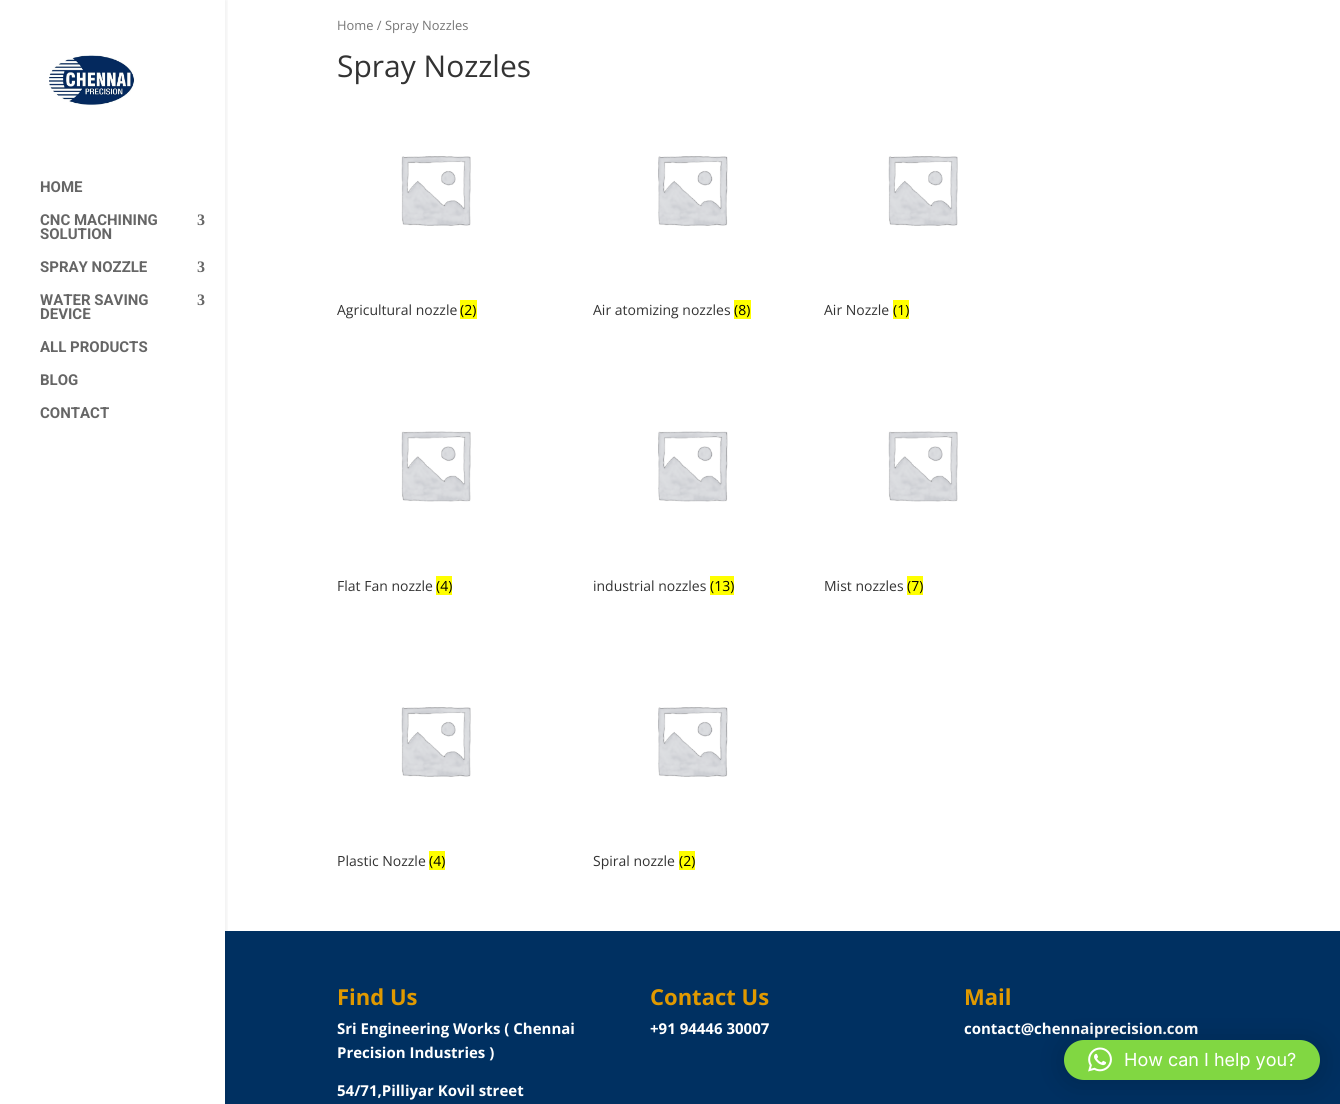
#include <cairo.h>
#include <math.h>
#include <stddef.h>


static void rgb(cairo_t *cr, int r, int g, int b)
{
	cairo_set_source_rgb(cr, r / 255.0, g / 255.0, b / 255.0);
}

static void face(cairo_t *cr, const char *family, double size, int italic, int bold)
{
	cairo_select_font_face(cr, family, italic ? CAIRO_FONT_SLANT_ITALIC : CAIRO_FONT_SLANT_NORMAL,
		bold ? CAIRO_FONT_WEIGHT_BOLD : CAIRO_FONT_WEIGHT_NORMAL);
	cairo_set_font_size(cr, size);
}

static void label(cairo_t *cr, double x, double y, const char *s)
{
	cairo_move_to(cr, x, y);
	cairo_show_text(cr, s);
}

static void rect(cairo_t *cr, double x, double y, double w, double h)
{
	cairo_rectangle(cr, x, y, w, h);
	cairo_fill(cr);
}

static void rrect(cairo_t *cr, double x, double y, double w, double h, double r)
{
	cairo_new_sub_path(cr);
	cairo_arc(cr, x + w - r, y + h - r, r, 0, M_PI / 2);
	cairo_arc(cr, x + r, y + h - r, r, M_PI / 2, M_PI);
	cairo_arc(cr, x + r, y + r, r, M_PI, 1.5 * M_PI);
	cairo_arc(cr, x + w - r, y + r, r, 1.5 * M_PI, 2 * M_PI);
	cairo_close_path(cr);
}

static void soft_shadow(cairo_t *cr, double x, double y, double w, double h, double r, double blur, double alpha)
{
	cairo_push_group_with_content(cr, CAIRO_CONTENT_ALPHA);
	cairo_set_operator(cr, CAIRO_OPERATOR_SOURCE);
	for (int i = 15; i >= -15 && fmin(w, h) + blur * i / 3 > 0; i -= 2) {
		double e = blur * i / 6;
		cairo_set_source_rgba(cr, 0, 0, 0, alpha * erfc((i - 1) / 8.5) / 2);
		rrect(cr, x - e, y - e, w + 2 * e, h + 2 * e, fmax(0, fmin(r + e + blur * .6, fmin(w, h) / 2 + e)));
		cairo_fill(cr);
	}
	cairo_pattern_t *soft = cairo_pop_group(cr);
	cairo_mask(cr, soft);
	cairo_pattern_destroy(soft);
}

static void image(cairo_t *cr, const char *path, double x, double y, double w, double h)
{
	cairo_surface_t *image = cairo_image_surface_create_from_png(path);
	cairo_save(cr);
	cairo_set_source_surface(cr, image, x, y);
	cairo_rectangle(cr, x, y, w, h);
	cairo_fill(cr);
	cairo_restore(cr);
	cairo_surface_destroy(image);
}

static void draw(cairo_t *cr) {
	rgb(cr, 255, 255, 255);
	cairo_paint(cr);
	rgb(cr, 0, 48, 97);
	rect(cr, 225, 931, 1115, 173);
	cairo_save(cr);
	cairo_rectangle(cr, 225, 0, 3, 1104);
	cairo_clip(cr);
	rgb(cr, 0, 0, 0);
	soft_shadow(cr, 0, 0, 225, 1104, 0, 3.5, 0.1);
	cairo_restore(cr);
	image(cr, "image0.png", 49, 55, 86, 51);
	face(cr, "Roboto", 15, 0, 1);
	rgb(cr, 102, 102, 102);
	label(cr, 40, 192, "HOME");
	label(cr, 40, 225, "CNC MACHINING");
	face(cr, "Liberation Serif", 16, 0, 1);
	label(cr, 197, 225, "3");
	face(cr, "Roboto", 15, 0, 1);
	label(cr, 40, 239, "SOLUTION");
	label(cr, 40, 272, "SPRAY NOZZLE");
	face(cr, "Liberation Serif", 16, 0, 1);
	label(cr, 197, 272, "3");
	face(cr, "Roboto", 15, 0, 1);
	label(cr, 40, 305, "WATER SAVING");
	face(cr, "Liberation Serif", 16, 0, 1);
	label(cr, 197, 305, "3");
	face(cr, "Roboto", 15, 0, 1);
	label(cr, 40, 319, "DEVICE");
	label(cr, 40, 352, "ALL PRODUCTS");
	label(cr, 40, 385, "BLOG");
	label(cr, 40, 418, "CONTACT");
	face(cr, "Open Sans", 12.9, 0, 0);
	rgb(cr, 118, 118, 118);
	label(cr, 337, 30, "Home / Spray Nozzles");
	face(cr, "Open Sans", 30, 0, 0);
	rgb(cr, 51, 51, 51);
	label(cr, 337, 77, "Spray Nozzles");
	image(cr, "image1.png", 401, 156, 70, 70);
	face(cr, "Open Sans", 14, 0, 0);
	label(cr, 337, 315, "Agricultural nozzle");
	rgb(cr, 255, 255, 0);
	rect(cr, 460, 300, 17, 19);
	rgb(cr, 0, 0, 0);
	label(cr, 460, 315, "(2)");
	image(cr, "image2.png", 658, 156, 70, 70);
	rgb(cr, 51, 51, 51);
	label(cr, 593, 315, "Air atomizing nozzles");
	rgb(cr, 255, 255, 0);
	rect(cr, 734, 300, 17, 19);
	rgb(cr, 0, 0, 0);
	label(cr, 734, 315, "(8)");
	image(cr, "image1.png", 888, 156, 70, 70);
	rgb(cr, 51, 51, 51);
	label(cr, 824, 315, "Air Nozzle");
	rgb(cr, 255, 255, 0);
	rect(cr, 893, 300, 16, 19);
	rgb(cr, 0, 0, 0);
	label(cr, 893, 315, "(1)");
	image(cr, "image3.png", 401, 431, 70, 71);
	rgb(cr, 51, 51, 51);
	label(cr, 337, 591, "Flat Fan nozzle");
	rgb(cr, 255, 255, 0);
	rect(cr, 436, 576, 16, 19);
	rgb(cr, 0, 0, 0);
	label(cr, 436, 591, "(4)");
	image(cr, "image4.png", 658, 431, 70, 71);
	rgb(cr, 51, 51, 51);
	label(cr, 593, 591, "industrial nozzles");
	rgb(cr, 255, 255, 0);
	rect(cr, 710, 576, 24, 19);
	rgb(cr, 0, 0, 0);
	label(cr, 710, 591, "(13)");
	image(cr, "image3.png", 888, 431, 70, 71);
	rgb(cr, 51, 51, 51);
	label(cr, 824, 591, "Mist nozzles");
	rgb(cr, 255, 255, 0);
	rect(cr, 907, 576, 16, 19);
	rgb(cr, 0, 0, 0);
	label(cr, 907, 591, "(7)");
	image(cr, "image1.png", 401, 707, 70, 70);
	rgb(cr, 51, 51, 51);
	label(cr, 337, 866, "Plastic Nozzle");
	rgb(cr, 255, 255, 0);
	rect(cr, 429, 851, 16, 19);
	rgb(cr, 0, 0, 0);
	label(cr, 429, 866, "(4)");
	image(cr, "image2.png", 658, 707, 70, 70);
	rgb(cr, 51, 51, 51);
	label(cr, 593, 866, "Spiral nozzle");
	rgb(cr, 255, 255, 0);
	rect(cr, 679, 851, 16, 19);
	rgb(cr, 0, 0, 0);
	label(cr, 679, 866, "(2)");
	face(cr, "Open Sans", 22, 0, 1);
	rgb(cr, 224, 153, 0);
	label(cr, 337, 1005, "Find Us");
	face(cr, "Open Sans", 15, 0, 1);
	rgb(cr, 255, 255, 255);
	label(cr, 337, 1034, "Sri Engineering Works ( Chennai");
	label(cr, 337, 1058, "Precision Industries )");
	label(cr, 337, 1096, "54/71,Pilliyar Kovil street");
	face(cr, "Open Sans", 22, 0, 1);
	rgb(cr, 224, 153, 0);
	label(cr, 650, 1005, "Contact Us");
	face(cr, "Open Sans", 15, 0, 1);
	rgb(cr, 255, 255, 255);
	label(cr, 650, 1034, "+91 94446 30007");
	face(cr, "Open Sans", 22, 0, 1);
	rgb(cr, 224, 153, 0);
	label(cr, 964, 1005, "Mail");
	face(cr, "Open Sans", 15, 0, 1);
	rgb(cr, 255, 255, 255);
	label(cr, 964, 1034, "contact@chennaiprecision.com");
	rgb(cr, 0, 0, 0);
	soft_shadow(cr, 1064, 1042, 256, 40, 20, 16, 0.16);
	rgb(cr, 129, 215, 66);
	rrect(cr, 1064, 1040, 256, 40, 20);
	cairo_fill(cr);
	image(cr, "image5.png", 1088, 1047, 24, 25);
	face(cr, "Inter", 18, 0, 0);
	rgb(cr, 255, 255, 255);
	label(cr, 1124, 1066, "How can I help you?");
}

int main(void) {
	cairo_surface_t *surface = cairo_image_surface_create(CAIRO_FORMAT_RGB24, 1340, 1104);
	cairo_t *cr = cairo_create(surface);
	cairo_font_options_t *options = cairo_font_options_create();
	cairo_font_options_set_hint_metrics(options, CAIRO_HINT_METRICS_OFF);
	cairo_font_options_set_hint_style(options, CAIRO_HINT_STYLE_NONE);
	cairo_set_font_options(cr, options);
	cairo_set_miter_limit(cr, 4);
	draw(cr);
	cairo_surface_write_to_png(surface, "render.png");
	cairo_font_options_destroy(options);
	cairo_destroy(cr);
	cairo_surface_destroy(surface);
	return 0;
}
